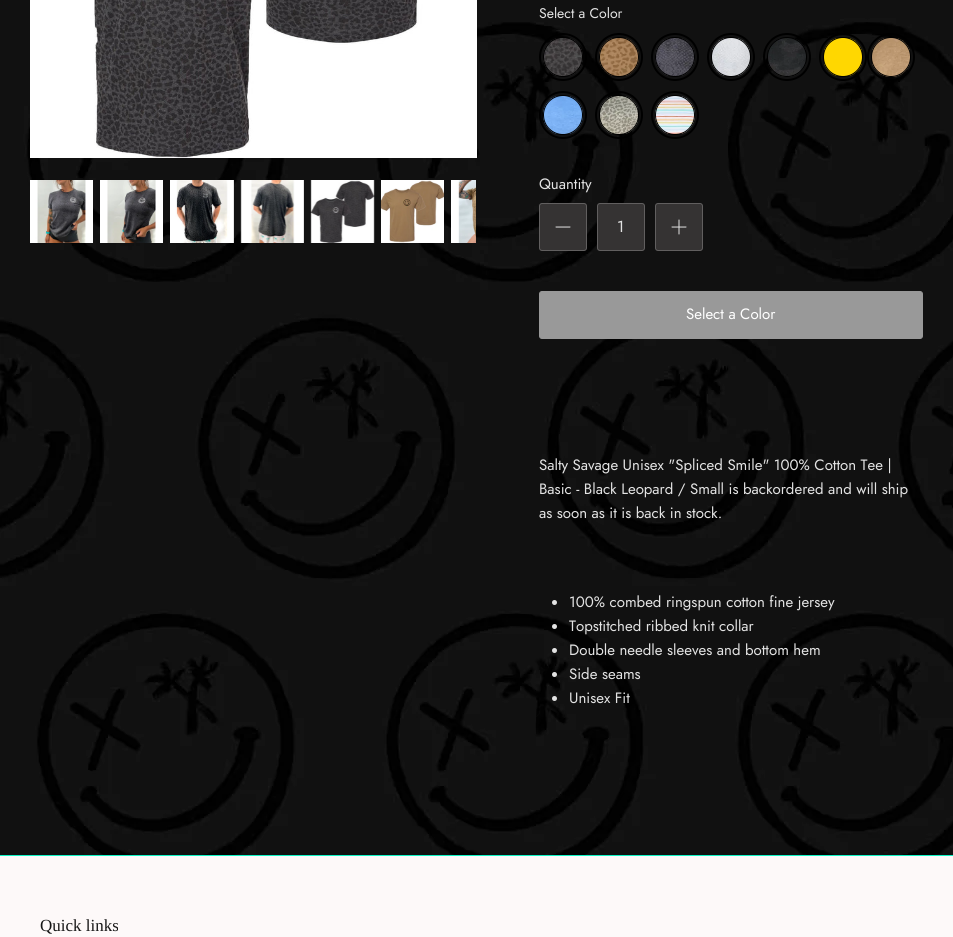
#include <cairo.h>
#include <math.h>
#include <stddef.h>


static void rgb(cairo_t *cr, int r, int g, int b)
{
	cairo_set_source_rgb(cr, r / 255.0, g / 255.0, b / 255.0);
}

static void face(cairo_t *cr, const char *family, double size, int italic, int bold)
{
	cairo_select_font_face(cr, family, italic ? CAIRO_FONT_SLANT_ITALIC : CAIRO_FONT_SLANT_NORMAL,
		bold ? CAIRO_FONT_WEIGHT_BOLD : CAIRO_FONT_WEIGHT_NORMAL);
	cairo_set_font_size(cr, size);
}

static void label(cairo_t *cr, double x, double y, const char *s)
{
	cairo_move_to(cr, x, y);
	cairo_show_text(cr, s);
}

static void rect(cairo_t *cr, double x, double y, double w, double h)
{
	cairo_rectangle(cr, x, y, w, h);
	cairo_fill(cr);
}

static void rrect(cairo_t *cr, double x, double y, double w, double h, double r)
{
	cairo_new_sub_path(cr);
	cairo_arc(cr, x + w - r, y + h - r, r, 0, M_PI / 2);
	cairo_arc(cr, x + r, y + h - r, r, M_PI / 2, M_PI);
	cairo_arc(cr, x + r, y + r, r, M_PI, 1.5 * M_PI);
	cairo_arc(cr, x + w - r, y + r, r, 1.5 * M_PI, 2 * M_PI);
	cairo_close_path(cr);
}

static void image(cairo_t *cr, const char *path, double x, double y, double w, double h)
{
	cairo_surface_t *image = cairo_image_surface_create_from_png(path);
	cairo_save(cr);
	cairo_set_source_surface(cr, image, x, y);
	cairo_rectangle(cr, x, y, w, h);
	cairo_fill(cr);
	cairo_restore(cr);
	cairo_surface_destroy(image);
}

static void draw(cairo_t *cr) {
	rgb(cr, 255, 255, 255);
	cairo_paint(cr);
	image(cr, "image0.png", 0, 0, 953, 855);
	image(cr, "image1.png", 30, 0, 447, 158);
	image(cr, "image2.png", 30, 180, 63, 63);
	image(cr, "image3.png", 100, 180, 63, 63);
	image(cr, "image4.png", 170, 180, 64, 63);
	image(cr, "image5.png", 240, 180, 64, 63);
	image(cr, "image6.png", 310, 180, 65, 63);
	image(cr, "image7.png", 381, 180, 63, 63);
	image(cr, "image8.png", 451, 180, 25, 63);
	face(cr, "Jost", 14, 0, 0);
	rgb(cr, 227, 227, 227);
	label(cr, 539, 18, "Select a Color");
	cairo_new_path(cr);
	cairo_arc(cr, 563, 57, 23, 0, 2 * M_PI);
	rgb(cr, 0, 0, 0);
	cairo_stroke(cr);
	image(cr, "image9.png", 543, 38, 40, 38);
	cairo_arc(cr, 563, 57, 19.5, 0, 2 * M_PI);
	cairo_set_line_width(cr, 1);
	cairo_stroke(cr);
	cairo_arc(cr, 619, 57, 23, 0, 2 * M_PI);
	cairo_set_line_width(cr, 2);
	cairo_stroke(cr);
	image(cr, "image10.png", 599, 38, 40, 38);
	cairo_arc(cr, 619, 57, 19.5, 0, 2 * M_PI);
	cairo_set_line_width(cr, 1);
	cairo_stroke(cr);
	cairo_arc(cr, 675, 57, 23, 0, 2 * M_PI);
	cairo_set_line_width(cr, 2);
	cairo_stroke(cr);
	image(cr, "image11.png", 655, 38, 40, 38);
	cairo_arc(cr, 675, 57, 19.5, 0, 2 * M_PI);
	cairo_set_line_width(cr, 1);
	cairo_stroke(cr);
	cairo_arc(cr, 731, 57, 23, 0, 2 * M_PI);
	cairo_set_line_width(cr, 2);
	cairo_stroke(cr);
	image(cr, "image12.png", 712, 38, 38, 38);
	cairo_arc(cr, 731, 57, 19.5, 0, 2 * M_PI);
	cairo_set_line_width(cr, 1);
	cairo_stroke(cr);
	cairo_arc(cr, 787, 57, 23, 0, 2 * M_PI);
	cairo_set_line_width(cr, 2);
	cairo_stroke(cr);
	image(cr, "image13.png", 768, 38, 38, 39);
	cairo_arc(cr, 787, 57, 19.5, 0, 2 * M_PI);
	cairo_set_line_width(cr, 1);
	cairo_stroke(cr);
	cairo_arc(cr, 843, 57, 23, 0, 2 * M_PI);
	cairo_set_line_width(cr, 2);
	cairo_stroke(cr);
	image(cr, "image14.png", 824, 38, 38, 38);
	cairo_arc(cr, 843, 57, 19.5, 0, 2 * M_PI);
	cairo_set_line_width(cr, 1);
	cairo_stroke(cr);
	cairo_arc(cr, 891, 57, 23, 0, 2 * M_PI);
	cairo_set_line_width(cr, 2);
	cairo_stroke(cr);
	image(cr, "image15.png", 872, 38, 38, 39);
	cairo_arc(cr, 891, 57, 19.5, 0, 2 * M_PI);
	cairo_set_line_width(cr, 1);
	cairo_stroke(cr);
	cairo_arc(cr, 563, 115, 23, 0, 2 * M_PI);
	cairo_set_line_width(cr, 2);
	cairo_stroke(cr);
	image(cr, "image16.png", 543, 96, 40, 38);
	cairo_arc(cr, 563, 115, 19.5, 0, 2 * M_PI);
	cairo_set_line_width(cr, 1);
	cairo_stroke(cr);
	cairo_arc(cr, 619, 115, 23, 0, 2 * M_PI);
	cairo_set_line_width(cr, 2);
	cairo_stroke(cr);
	image(cr, "image17.png", 600, 96, 38, 38);
	cairo_arc(cr, 619, 115, 19.5, 0, 2 * M_PI);
	cairo_set_line_width(cr, 1);
	cairo_stroke(cr);
	cairo_arc(cr, 675, 115, 23, 0, 2 * M_PI);
	cairo_set_line_width(cr, 2);
	cairo_stroke(cr);
	image(cr, "image18.png", 655, 96, 40, 38);
	cairo_arc(cr, 675, 115, 19.5, 0, 2 * M_PI);
	cairo_set_line_width(cr, 1);
	cairo_stroke(cr);
	face(cr, "Jost", 15, 0, 0);
	rgb(cr, 227, 227, 227);
	label(cr, 539, 189, "Quantity");
	rgb(cr, 53, 51, 51);
	rrect(cr, 539.5, 203.5, 47, 47, 2.5);
	cairo_fill_preserve(cr);
	rgb(cr, 97, 95, 95);
	cairo_stroke(cr);
	cairo_new_path(cr);
	cairo_move_to(cr, 556, 227);
	cairo_line_to(cr, 570, 227);
	rgb(cr, 227, 227, 227);
	cairo_set_line_cap(cr, CAIRO_LINE_CAP_ROUND);
	cairo_set_line_join(cr, CAIRO_LINE_JOIN_ROUND);
	cairo_stroke(cr);
	rgb(cr, 53, 51, 51);
	rrect(cr, 597.5, 203.5, 47, 47, 2.5);
	cairo_fill_preserve(cr);
	rgb(cr, 97, 95, 95);
	cairo_set_line_cap(cr, CAIRO_LINE_CAP_BUTT);
	cairo_set_line_join(cr, CAIRO_LINE_JOIN_MITER);
	cairo_stroke(cr);
	face(cr, "Jost", 16, 0, 0);
	rgb(cr, 227, 227, 227);
	label(cr, 617, 232, "1");
	rgb(cr, 53, 51, 51);
	rrect(cr, 655.5, 203.5, 47, 47, 2.5);
	cairo_fill_preserve(cr);
	rgb(cr, 97, 95, 95);
	cairo_stroke(cr);
	cairo_new_path(cr);
	cairo_move_to(cr, 679, 220);
	cairo_line_to(cr, 679, 234);
	cairo_move_to(cr, 672, 227);
	cairo_line_to(cr, 686, 227);
	rgb(cr, 227, 227, 227);
	cairo_set_line_cap(cr, CAIRO_LINE_CAP_ROUND);
	cairo_set_line_join(cr, CAIRO_LINE_JOIN_ROUND);
	cairo_stroke(cr);
	rgb(cr, 153, 153, 153);
	rrect(cr, 539.5, 291.5, 383, 47, 2.5);
	cairo_fill_preserve(cr);
	cairo_set_line_cap(cr, CAIRO_LINE_CAP_BUTT);
	cairo_set_line_join(cr, CAIRO_LINE_JOIN_MITER);
	cairo_stroke(cr);
	face(cr, "Jost", 15, 0, 0);
	rgb(cr, 255, 255, 255);
	label(cr, 686, 319, "Select a Color");
	rgb(cr, 227, 227, 227);
	label(cr, 539, 470, "Salty Savage Unisex \"Spliced Smile\" 100% Cotton Tee |");
	label(cr, 539, 494, "Basic - Black Leopard / Small is backordered and will ship");
	label(cr, 539, 518, "as soon as it is back in stock.");
	cairo_new_path(cr);
	cairo_arc(cr, 554.5, 602.5, 2.5, 0, 2 * M_PI);
	cairo_fill(cr);
	label(cr, 569, 607, "100% combed ringspun cotton fine jersey");
	cairo_new_path(cr);
	cairo_arc(cr, 554.5, 626.5, 2.5, 0, 2 * M_PI);
	cairo_fill(cr);
	label(cr, 569, 631, "Topstitched ribbed knit collar");
	cairo_new_path(cr);
	cairo_arc(cr, 554.5, 650.5, 2.5, 0, 2 * M_PI);
	cairo_fill(cr);
	label(cr, 569, 655, "Double needle sleeves and bottom hem");
	cairo_new_path(cr);
	cairo_arc(cr, 554.5, 674.5, 2.5, 0, 2 * M_PI);
	cairo_fill(cr);
	label(cr, 569, 679, "Side seams");
	cairo_new_path(cr);
	cairo_arc(cr, 554.5, 698.5, 2.5, 0, 2 * M_PI);
	cairo_fill(cr);
	label(cr, 569, 703, "Unisex Fit");
	rgb(cr, 253, 249, 249);
	rect(cr, 0, 856, 953, 81);
	rgb(cr, 13, 245, 197);
	rect(cr, 0, 855, 953, 1);
	face(cr, "Liberation Serif", 17, 0, 0);
	rgb(cr, 23, 23, 23);
	label(cr, 40, 931, "Quick links");
}

int main(void) {
	cairo_surface_t *surface = cairo_image_surface_create(CAIRO_FORMAT_RGB24, 953, 937);
	cairo_t *cr = cairo_create(surface);
	cairo_font_options_t *options = cairo_font_options_create();
	cairo_font_options_set_hint_metrics(options, CAIRO_HINT_METRICS_OFF);
	cairo_font_options_set_hint_style(options, CAIRO_HINT_STYLE_NONE);
	cairo_set_font_options(cr, options);
	cairo_set_miter_limit(cr, 4);
	draw(cr);
	cairo_surface_write_to_png(surface, "render.png");
	cairo_font_options_destroy(options);
	cairo_destroy(cr);
	cairo_surface_destroy(surface);
	return 0;
}
